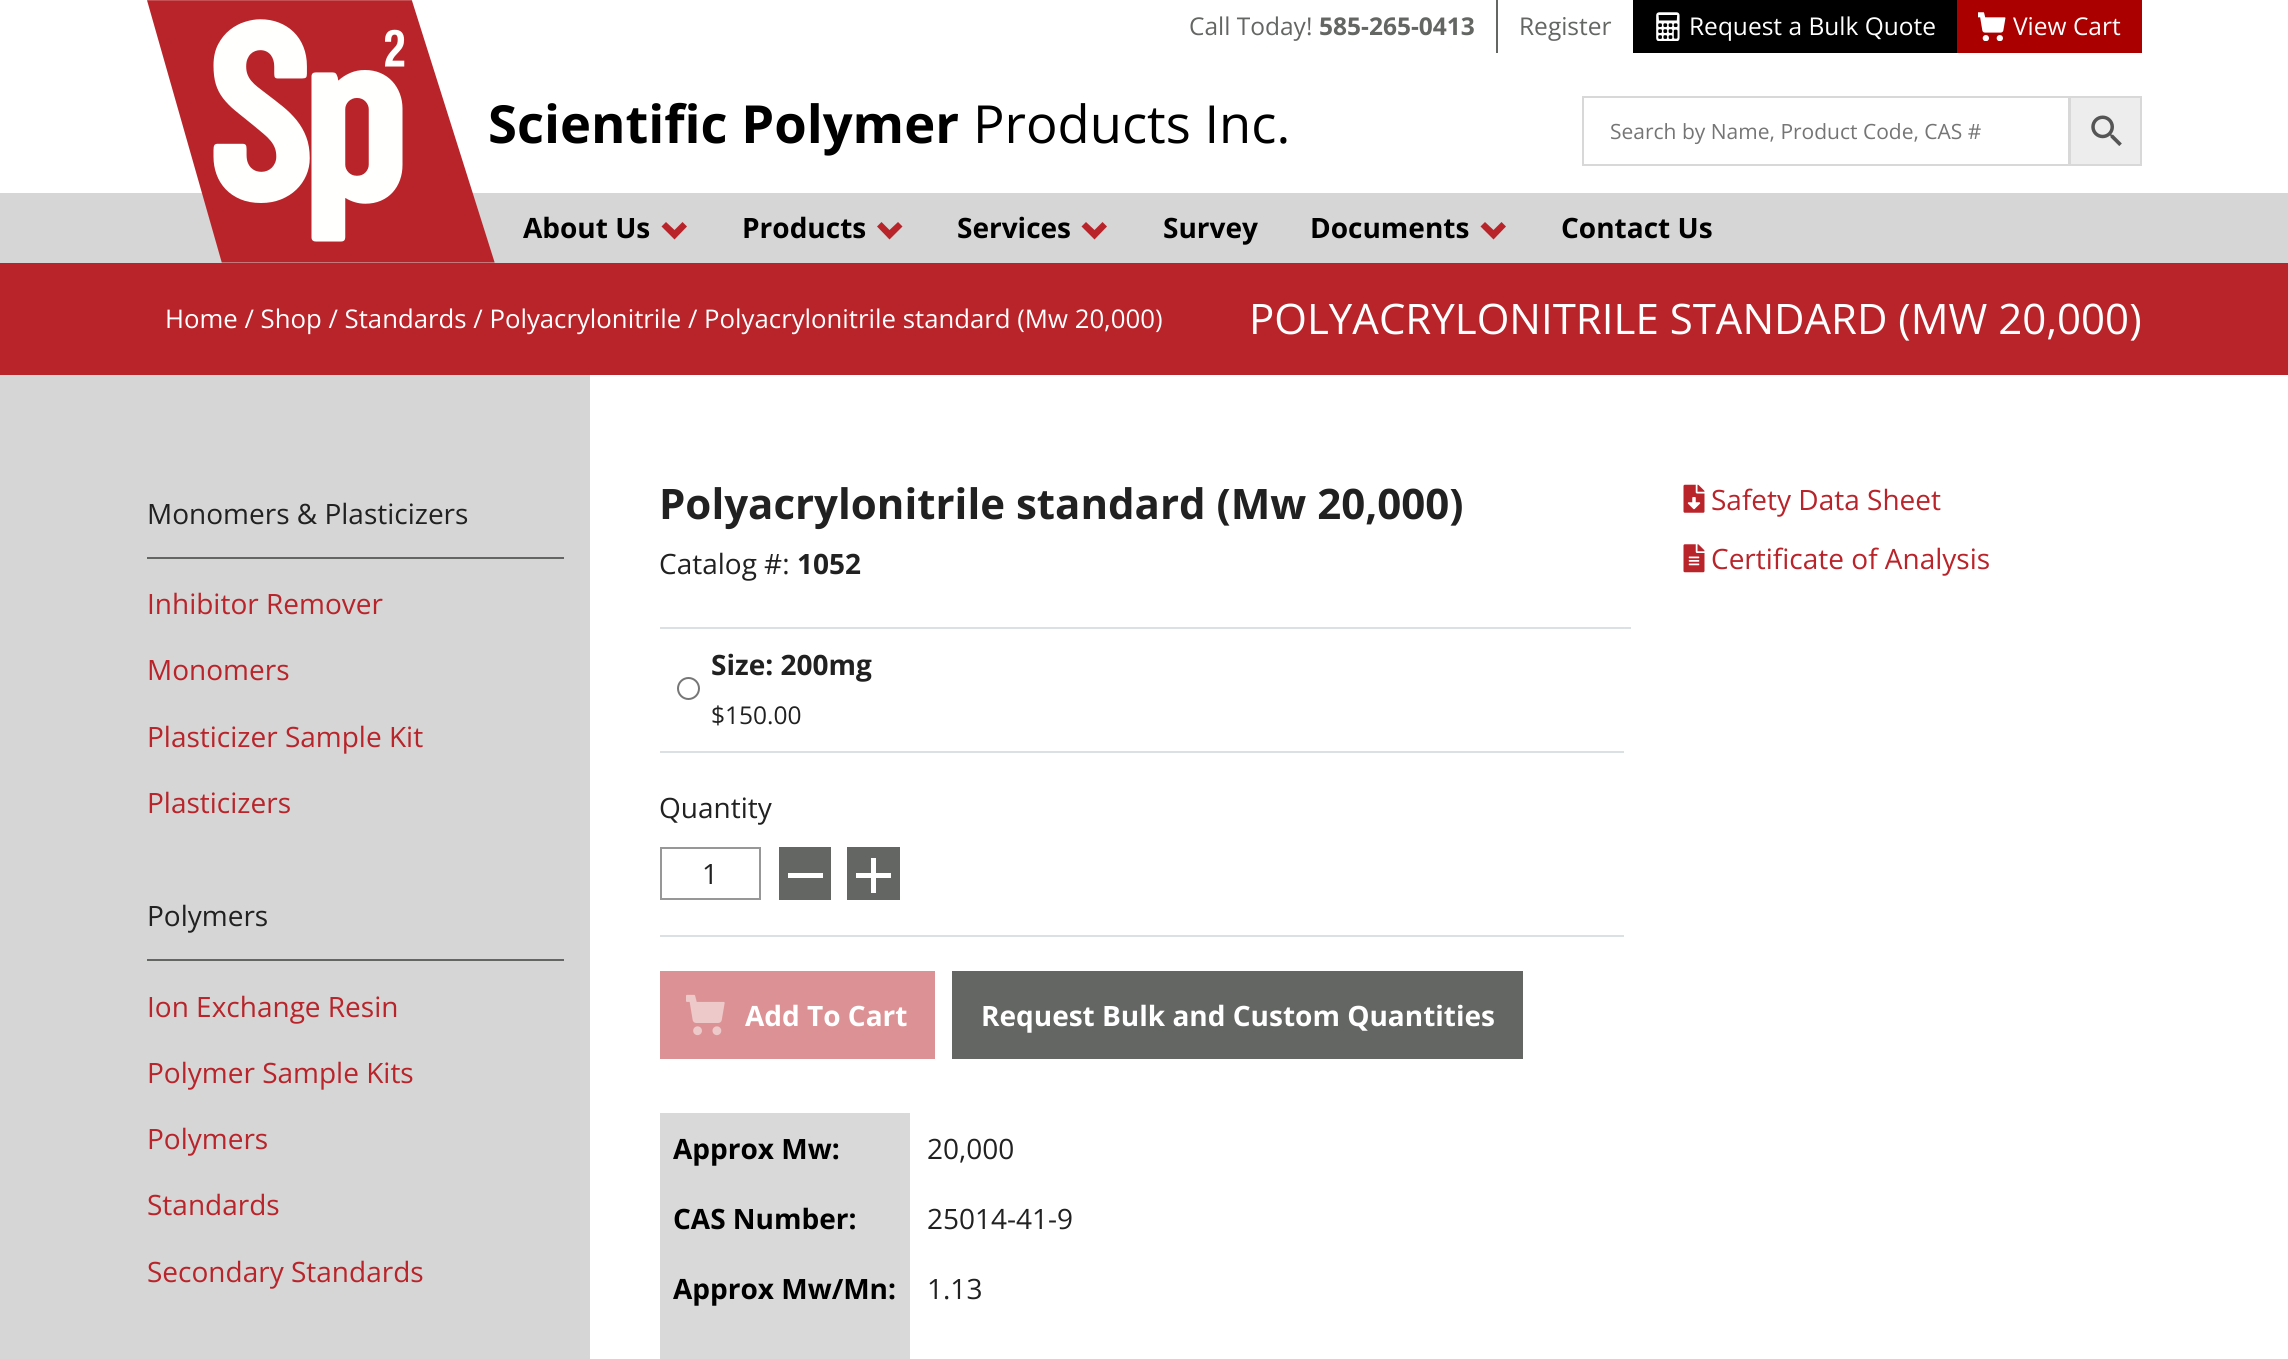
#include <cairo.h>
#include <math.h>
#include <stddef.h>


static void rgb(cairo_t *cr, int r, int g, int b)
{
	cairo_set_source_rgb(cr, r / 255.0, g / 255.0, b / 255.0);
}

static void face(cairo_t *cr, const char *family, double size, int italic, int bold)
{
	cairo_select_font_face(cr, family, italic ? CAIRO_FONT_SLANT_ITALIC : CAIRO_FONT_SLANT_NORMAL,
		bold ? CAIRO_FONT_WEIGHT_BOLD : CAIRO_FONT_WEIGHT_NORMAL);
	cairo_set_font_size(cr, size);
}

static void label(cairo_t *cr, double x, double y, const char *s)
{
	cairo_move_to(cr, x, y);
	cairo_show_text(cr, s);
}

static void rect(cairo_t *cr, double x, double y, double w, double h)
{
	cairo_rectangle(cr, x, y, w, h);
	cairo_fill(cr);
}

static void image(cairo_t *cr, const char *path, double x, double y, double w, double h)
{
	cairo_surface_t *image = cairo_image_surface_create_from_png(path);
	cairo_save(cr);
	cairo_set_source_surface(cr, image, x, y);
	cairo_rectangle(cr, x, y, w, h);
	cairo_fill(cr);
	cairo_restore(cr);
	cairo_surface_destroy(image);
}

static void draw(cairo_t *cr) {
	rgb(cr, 255, 255, 255);
	cairo_paint(cr);
	face(cr, "Open Sans", 24.5, 0, 0);
	rgb(cr, 100, 102, 100);
	label(cr, 1189, 35, "Call Today!");
	face(cr, "Open Sans", 24.5, 0, 1);
	label(cr, 1319, 35, "585-265-0413");
	rect(cr, 1496, 0, 2, 53);
	face(cr, "Open Sans", 24.5, 0, 0);
	label(cr, 1519, 35, "Register");
	rgb(cr, 0, 0, 0);
	rect(cr, 1633, 0, 324, 53);
	image(cr, "image0.png", 1656, 12, 24, 29);
	rgb(cr, 255, 255, 255);
	label(cr, 1689, 35, "Request a Bulk Quote");
	rgb(cr, 170, 0, 0);
	rect(cr, 1957, 0, 185, 53);
	image(cr, "image1.png", 1978, 12, 28, 29);
	rgb(cr, 255, 255, 255);
	label(cr, 2013, 35, "View Cart");
	rgb(cr, 213, 214, 213);
	rect(cr, 0, 193, 2288, 70);
	image(cr, "image2.png", 147, 0, 348, 263);
	face(cr, "Open Sans", 52.5, 0, 1);
	rgb(cr, 0, 0, 0);
	label(cr, 488, 143, "Scientific Polymer");
	face(cr, "Open Sans", 52.5, 0, 0);
	label(cr, 973, 143, "Products Inc.");
	rgb(cr, 237, 237, 237);
	cairo_rectangle(cr, 2070, 97, 71, 68);
	cairo_fill_preserve(cr);
	rgb(cr, 216, 216, 216);
	cairo_stroke(cr);
	cairo_rectangle(cr, 1583, 97, 486, 68);
	cairo_stroke(cr);
	face(cr, "Open Sans", 21, 0, 0);
	rgb(cr, 117, 117, 117);
	label(cr, 1610, 139, "Search by Name, Product Code, CAS #");
	image(cr, "image3.png", 2091, 115, 31, 31);
	face(cr, "Open Sans", 28, 0, 1);
	rgb(cr, 0, 0, 0);
	label(cr, 523, 238, "About Us");
	rgb(cr, 185, 36, 42);
	cairo_new_path(cr);
	cairo_move_to(cr, 687, 226.5);
	cairo_line_to(cr, 674.5, 239.5);
	cairo_line_to(cr, 661.5, 226.5);
	cairo_line_to(cr, 666, 222);
	cairo_line_to(cr, 674.5, 230);
	cairo_line_to(cr, 682.5, 222);
	cairo_close_path(cr);
	cairo_fill(cr);
	rgb(cr, 0, 0, 0);
	label(cr, 742, 238, "Products");
	rgb(cr, 185, 36, 42);
	cairo_new_path(cr);
	cairo_move_to(cr, 902.5, 226.5);
	cairo_line_to(cr, 889.5, 239.5);
	cairo_line_to(cr, 877, 226.5);
	cairo_line_to(cr, 881.5, 222);
	cairo_line_to(cr, 889.5, 230);
	cairo_line_to(cr, 898, 222);
	cairo_close_path(cr);
	cairo_fill(cr);
	rgb(cr, 0, 0, 0);
	label(cr, 957, 238, "Services");
	rgb(cr, 185, 36, 42);
	cairo_new_path(cr);
	cairo_move_to(cr, 1107, 226.5);
	cairo_line_to(cr, 1094.5, 239.5);
	cairo_line_to(cr, 1081.5, 226.5);
	cairo_line_to(cr, 1086, 222);
	cairo_line_to(cr, 1094.5, 230);
	cairo_line_to(cr, 1102.5, 222);
	cairo_close_path(cr);
	cairo_fill(cr);
	rgb(cr, 0, 0, 0);
	label(cr, 1163, 238, "Survey");
	label(cr, 1310, 238, "Documents");
	rgb(cr, 185, 36, 42);
	cairo_new_path(cr);
	cairo_move_to(cr, 1506, 226.5);
	cairo_line_to(cr, 1493.5, 239.5);
	cairo_line_to(cr, 1480.5, 226.5);
	cairo_line_to(cr, 1485, 222);
	cairo_line_to(cr, 1493.5, 230);
	cairo_line_to(cr, 1501.5, 222);
	cairo_close_path(cr);
	cairo_fill(cr);
	rgb(cr, 0, 0, 0);
	label(cr, 1561, 238, "Contact Us");
	rgb(cr, 185, 36, 42);
	rect(cr, 0, 263, 2288, 112);
	face(cr, "Open Sans", 25.75, 0, 0);
	rgb(cr, 255, 255, 255);
	label(cr, 165, 328, "Home / Shop / Standards / Polyacrylonitrile / Polyacrylonitrile standard (Mw 20,000)");
	face(cr, "Open Sans", 42, 0, 0);
	label(cr, 1249, 334, "POLYACRYLONITRILE STANDARD (MW 20,000)");
	rgb(cr, 213, 214, 213);
	rect(cr, 0, 375, 590, 984);
	rgb(cr, 100, 102, 100);
	rect(cr, 147, 557, 417, 2);
	face(cr, "Open Sans", 28, 0, 0);
	rgb(cr, 33, 33, 33);
	label(cr, 147, 524, "Monomers & Plasticizers");
	rgb(cr, 185, 36, 42);
	label(cr, 147, 614, "Inhibitor Remover");
	label(cr, 147, 680, "Monomers");
	label(cr, 147, 747, "Plasticizer Sample Kit");
	label(cr, 147, 813, "Plasticizers");
	rgb(cr, 100, 102, 100);
	rect(cr, 147, 959, 417, 2);
	rgb(cr, 33, 33, 33);
	label(cr, 147, 926, "Polymers");
	rgb(cr, 185, 36, 42);
	label(cr, 147, 1017, "Ion Exchange Resin");
	label(cr, 147, 1083, "Polymer Sample Kits");
	label(cr, 147, 1149, "Polymers");
	label(cr, 147, 1215, "Standards");
	label(cr, 147, 1282, "Secondary Standards");
	face(cr, "Open Sans", 42, 0, 1);
	rgb(cr, 33, 33, 33);
	label(cr, 659, 519, "Polyacrylonitrile standard (Mw 20,000)");
	face(cr, "Open Sans", 28, 0, 0);
	label(cr, 659, 574, "Catalog #:");
	face(cr, "Open Sans", 28, 0, 1);
	label(cr, 797, 574, "1052");
	rgb(cr, 219, 225, 227);
	rect(cr, 660, 627, 971, 2);
	cairo_new_path(cr);
	cairo_arc(cr, 688.5, 688.5, 10.5, 0, 2 * M_PI);
	rgb(cr, 118, 118, 118);
	cairo_stroke(cr);
	rgb(cr, 33, 33, 33);
	label(cr, 711, 675, "Size: 200mg");
	face(cr, "Open Sans", 24.5, 0, 0);
	label(cr, 711, 724, "$150.00");
	rgb(cr, 219, 225, 227);
	rect(cr, 660, 751, 964, 2);
	rect(cr, 660, 935, 964, 2);
	face(cr, "Open Sans", 28, 0, 0);
	rgb(cr, 33, 33, 33);
	label(cr, 659, 818, "Quantity");
	cairo_rectangle(cr, 661, 848, 99, 51);
	rgb(cr, 151, 151, 151);
	cairo_stroke(cr);
	rgb(cr, 33, 33, 33);
	label(cr, 702, 884, "1");
	rgb(cr, 100, 102, 100);
	rect(cr, 779, 847, 52, 53);
	rgb(cr, 255, 255, 255);
	rect(cr, 788, 873, 35, 5);
	rgb(cr, 100, 102, 100);
	rect(cr, 847, 847, 53, 53);
	rgb(cr, 255, 255, 255);
	rect(cr, 856, 873, 35, 5);
	rect(cr, 871, 858, 5, 35);
	rgb(cr, 220, 146, 149);
	rect(cr, 660, 971, 275, 88);
	image(cr, "image4.png", 686, 994, 39, 42);
	face(cr, "Open Sans", 28, 0, 1);
	rgb(cr, 255, 255, 255);
	label(cr, 745, 1026, "Add To Cart");
	rgb(cr, 100, 102, 100);
	rect(cr, 952, 971, 571, 88);
	rgb(cr, 255, 255, 255);
	label(cr, 981, 1026, "Request Bulk and Custom Quantities");
	image(cr, "image5.png", 1683, 484, 22, 29);
	face(cr, "Open Sans", 28, 0, 0);
	rgb(cr, 185, 36, 42);
	label(cr, 1711, 510, "Safety Data Sheet");
	image(cr, "image6.png", 1683, 544, 22, 29);
	label(cr, 1711, 569, "Certificate of Analysis");
	rgb(cr, 217, 217, 217);
	rect(cr, 660, 1113, 250, 246);
	face(cr, "Open Sans", 28, 0, 1);
	rgb(cr, 0, 0, 0);
	label(cr, 673, 1159, "Approx Mw:");
	face(cr, "Open Sans", 28, 0, 0);
	rgb(cr, 33, 33, 33);
	label(cr, 927, 1159, "20,000");
	face(cr, "Open Sans", 28, 0, 1);
	rgb(cr, 0, 0, 0);
	label(cr, 673, 1229, "CAS Number:");
	face(cr, "Open Sans", 28, 0, 0);
	rgb(cr, 33, 33, 33);
	label(cr, 927, 1229, "25014-41-9");
	face(cr, "Open Sans", 28, 0, 1);
	rgb(cr, 0, 0, 0);
	label(cr, 673, 1299, "Approx Mw/Mn:");
	face(cr, "Open Sans", 28, 0, 0);
	rgb(cr, 33, 33, 33);
	label(cr, 927, 1299, "1.13");
}

int main(void) {
	cairo_surface_t *surface = cairo_image_surface_create(CAIRO_FORMAT_RGB24, 2288, 1359);
	cairo_t *cr = cairo_create(surface);
	cairo_font_options_t *options = cairo_font_options_create();
	cairo_font_options_set_hint_metrics(options, CAIRO_HINT_METRICS_OFF);
	cairo_font_options_set_hint_style(options, CAIRO_HINT_STYLE_NONE);
	cairo_set_font_options(cr, options);
	cairo_set_miter_limit(cr, 4);
	draw(cr);
	cairo_surface_write_to_png(surface, "render.png");
	cairo_font_options_destroy(options);
	cairo_destroy(cr);
	cairo_surface_destroy(surface);
	return 0;
}
